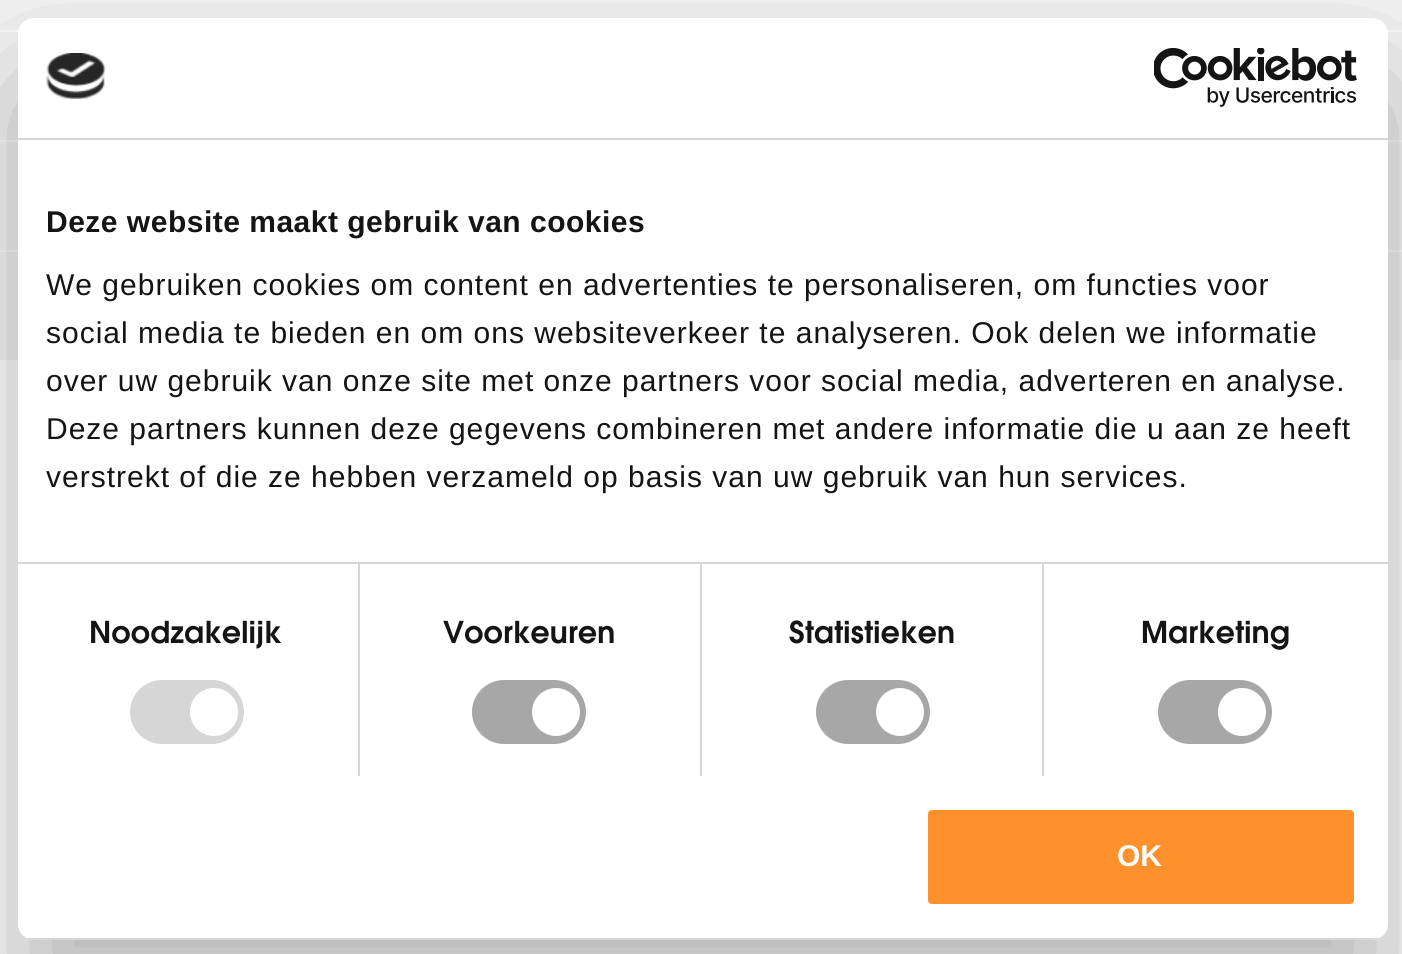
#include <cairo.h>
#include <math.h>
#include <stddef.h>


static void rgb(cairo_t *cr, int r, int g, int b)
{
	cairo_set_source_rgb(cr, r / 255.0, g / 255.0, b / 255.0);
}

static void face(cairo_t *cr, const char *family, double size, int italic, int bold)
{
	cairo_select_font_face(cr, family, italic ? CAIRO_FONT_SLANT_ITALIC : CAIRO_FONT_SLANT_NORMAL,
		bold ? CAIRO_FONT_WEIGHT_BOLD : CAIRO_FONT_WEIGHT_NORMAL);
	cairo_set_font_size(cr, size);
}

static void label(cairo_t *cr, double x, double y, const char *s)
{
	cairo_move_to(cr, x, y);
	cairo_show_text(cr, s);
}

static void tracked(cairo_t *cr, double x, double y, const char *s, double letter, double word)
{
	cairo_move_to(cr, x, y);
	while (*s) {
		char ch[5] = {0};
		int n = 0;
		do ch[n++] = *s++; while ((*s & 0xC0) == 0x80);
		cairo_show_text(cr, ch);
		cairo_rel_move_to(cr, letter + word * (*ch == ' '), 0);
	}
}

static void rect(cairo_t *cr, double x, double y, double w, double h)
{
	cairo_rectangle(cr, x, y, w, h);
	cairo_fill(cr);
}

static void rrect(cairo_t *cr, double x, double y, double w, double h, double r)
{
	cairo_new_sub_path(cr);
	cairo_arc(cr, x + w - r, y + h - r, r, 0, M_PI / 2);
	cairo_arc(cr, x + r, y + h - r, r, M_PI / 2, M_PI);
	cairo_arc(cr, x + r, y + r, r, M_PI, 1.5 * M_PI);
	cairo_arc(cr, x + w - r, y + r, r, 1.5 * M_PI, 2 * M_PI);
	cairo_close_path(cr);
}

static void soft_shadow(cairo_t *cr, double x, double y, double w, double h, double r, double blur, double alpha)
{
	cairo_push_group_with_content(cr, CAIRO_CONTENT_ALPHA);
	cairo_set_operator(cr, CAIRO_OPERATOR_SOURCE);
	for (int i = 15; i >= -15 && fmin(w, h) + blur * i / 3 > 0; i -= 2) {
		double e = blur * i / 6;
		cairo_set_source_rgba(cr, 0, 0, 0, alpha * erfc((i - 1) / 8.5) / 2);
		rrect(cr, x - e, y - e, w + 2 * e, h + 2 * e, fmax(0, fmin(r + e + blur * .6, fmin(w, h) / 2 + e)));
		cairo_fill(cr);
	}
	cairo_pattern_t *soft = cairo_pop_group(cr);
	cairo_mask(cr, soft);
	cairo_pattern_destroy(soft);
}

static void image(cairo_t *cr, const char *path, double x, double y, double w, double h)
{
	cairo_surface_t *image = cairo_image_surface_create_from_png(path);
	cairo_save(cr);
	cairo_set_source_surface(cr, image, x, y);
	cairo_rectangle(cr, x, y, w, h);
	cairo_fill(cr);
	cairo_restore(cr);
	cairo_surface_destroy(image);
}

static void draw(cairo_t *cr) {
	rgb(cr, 255, 255, 255);
	cairo_paint(cr);
	rgb(cr, 245, 245, 245);
	rect(cr, 0, 0, 1402, 30);
	rect(cr, 0, 32, 1402, 108);
	rect(cr, 0, 142, 1402, 108);
	rect(cr, 0, 252, 1402, 108);
	rgb(cr, 0, 0, 0);
	soft_shadow(cr, 18, 82, 1370, 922, 16, 68, 0.3);
	rgb(cr, 255, 255, 255);
	rrect(cr, 18, 18, 1370, 922, 16);
	cairo_fill(cr);
	rgb(cr, 214, 214, 214);
	rect(cr, 18, 138, 1370, 2);
	image(cr, "image0.png", 46, 53, 60, 46);
	image(cr, "image1.png", 1154, 48, 203, 59);
	rect(cr, 18, 562, 1370, 2);
	face(cr, "Liberation Sans", 30, 0, 1);
	rgb(cr, 20, 20, 20);
	tracked(cr, 46, 232, "Deze website maakt gebruik van cookies", 0.5, 0);
	face(cr, "Liberation Sans", 30, 0, 0);
	tracked(cr, 46, 295, "We gebruiken cookies om content en advertenties te personaliseren, om functies voor", 1, 0);
	tracked(cr, 46, 343, "social media te bieden en om ons websiteverkeer te analyseren. Ook delen we informatie", 1, 0);
	tracked(cr, 46, 391, "over uw gebruik van onze site met onze partners voor social media, adverteren en analyse.", 1, 0);
	tracked(cr, 46, 439, "Deze partners kunnen deze gegevens combineren met andere informatie die u aan ze heeft", 1, 0);
	tracked(cr, 46, 487, "verstrekt of die ze hebben verzameld op basis van uw gebruik van hun services.", 1, 0);
	rgb(cr, 214, 214, 214);
	rect(cr, 358, 564, 2, 212);
	image(cr, "image2.png", 91, 620, 190, 29);
	rrect(cr, 130, 680, 114, 64, 32);
	cairo_fill(cr);
	rgb(cr, 255, 255, 255);
	cairo_arc(cr, 214, 712, 24, 0, 2 * M_PI);
	cairo_fill(cr);
	rgb(cr, 214, 214, 214);
	rect(cr, 700, 564, 2, 212);
	image(cr, "image3.png", 443, 620, 171, 24);
	rgb(cr, 167, 167, 167);
	rrect(cr, 472, 680, 114, 64, 32);
	cairo_fill(cr);
	rgb(cr, 255, 255, 255);
	cairo_arc(cr, 556, 712, 24, 0, 2 * M_PI);
	cairo_fill(cr);
	rgb(cr, 214, 214, 214);
	rect(cr, 1042, 564, 2, 212);
	image(cr, "image4.png", 789, 620, 165, 24);
	rgb(cr, 167, 167, 167);
	rrect(cr, 816, 680, 114, 64, 32);
	cairo_fill(cr);
	rgb(cr, 255, 255, 255);
	cairo_arc(cr, 900, 712, 24, 0, 2 * M_PI);
	cairo_fill(cr);
	image(cr, "image5.png", 1142, 620, 147, 30);
	rgb(cr, 167, 167, 167);
	rrect(cr, 1158, 680, 114, 64, 32);
	cairo_fill(cr);
	rgb(cr, 255, 255, 255);
	cairo_arc(cr, 1242, 712, 24, 0, 2 * M_PI);
	cairo_fill(cr);
	cairo_save(cr);
	rrect(cr, 18, 18, 1370, 922, 16);
	cairo_clip(cr);
	rgb(cr, 214, 214, 214);
	rect(cr, 18, 938, 1370, 2);
	cairo_restore(cr);
	rgb(cr, 255, 145, 44);
	rrect(cr, 926, 808, 430, 98, 6);
	cairo_fill_preserve(cr);
	rgb(cr, 255, 255, 255);
	cairo_set_line_width(cr, 4);
	cairo_stroke(cr);
	face(cr, "Liberation Sans", 30, 0, 1);
	label(cr, 1117, 866, "OK");
}

int main(void) {
	cairo_surface_t *surface = cairo_image_surface_create(CAIRO_FORMAT_RGB24, 1402, 954);
	cairo_t *cr = cairo_create(surface);
	cairo_font_options_t *options = cairo_font_options_create();
	cairo_font_options_set_hint_metrics(options, CAIRO_HINT_METRICS_OFF);
	cairo_font_options_set_hint_style(options, CAIRO_HINT_STYLE_NONE);
	cairo_set_font_options(cr, options);
	cairo_set_miter_limit(cr, 4);
	draw(cr);
	cairo_surface_write_to_png(surface, "render.png");
	cairo_font_options_destroy(options);
	cairo_destroy(cr);
	cairo_surface_destroy(surface);
	return 0;
}
